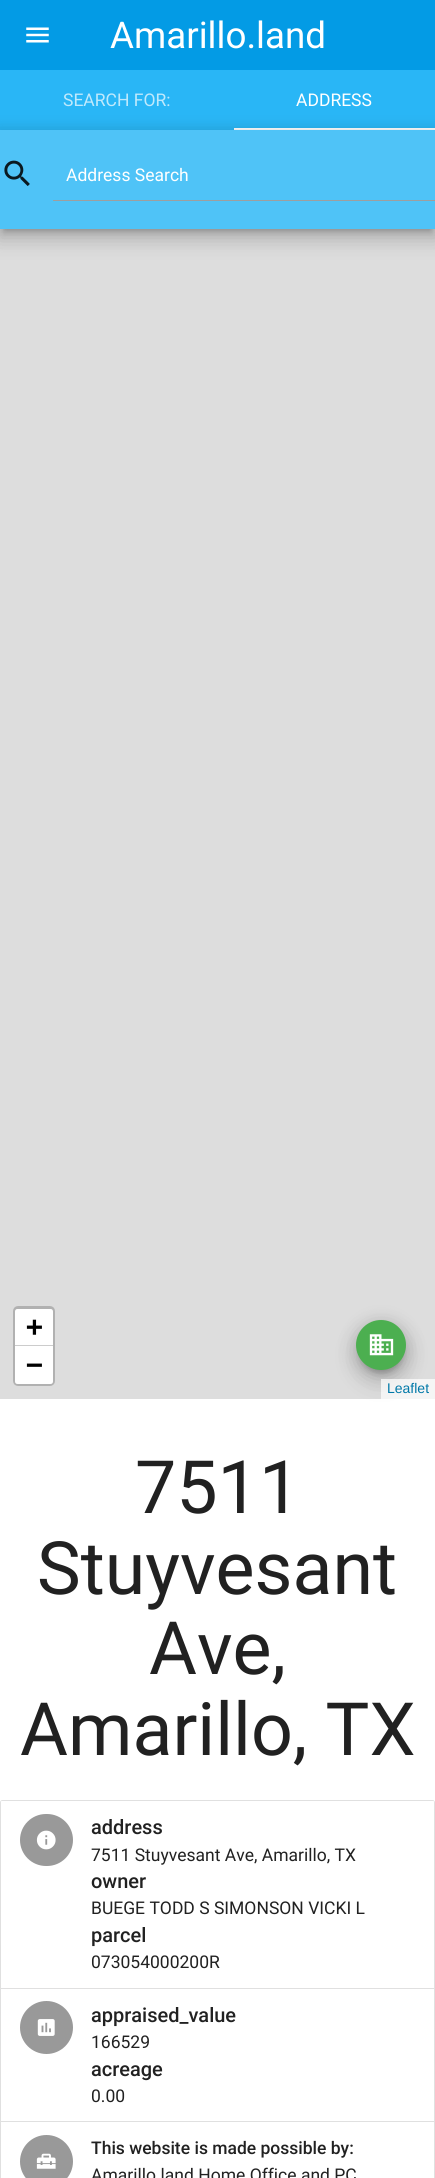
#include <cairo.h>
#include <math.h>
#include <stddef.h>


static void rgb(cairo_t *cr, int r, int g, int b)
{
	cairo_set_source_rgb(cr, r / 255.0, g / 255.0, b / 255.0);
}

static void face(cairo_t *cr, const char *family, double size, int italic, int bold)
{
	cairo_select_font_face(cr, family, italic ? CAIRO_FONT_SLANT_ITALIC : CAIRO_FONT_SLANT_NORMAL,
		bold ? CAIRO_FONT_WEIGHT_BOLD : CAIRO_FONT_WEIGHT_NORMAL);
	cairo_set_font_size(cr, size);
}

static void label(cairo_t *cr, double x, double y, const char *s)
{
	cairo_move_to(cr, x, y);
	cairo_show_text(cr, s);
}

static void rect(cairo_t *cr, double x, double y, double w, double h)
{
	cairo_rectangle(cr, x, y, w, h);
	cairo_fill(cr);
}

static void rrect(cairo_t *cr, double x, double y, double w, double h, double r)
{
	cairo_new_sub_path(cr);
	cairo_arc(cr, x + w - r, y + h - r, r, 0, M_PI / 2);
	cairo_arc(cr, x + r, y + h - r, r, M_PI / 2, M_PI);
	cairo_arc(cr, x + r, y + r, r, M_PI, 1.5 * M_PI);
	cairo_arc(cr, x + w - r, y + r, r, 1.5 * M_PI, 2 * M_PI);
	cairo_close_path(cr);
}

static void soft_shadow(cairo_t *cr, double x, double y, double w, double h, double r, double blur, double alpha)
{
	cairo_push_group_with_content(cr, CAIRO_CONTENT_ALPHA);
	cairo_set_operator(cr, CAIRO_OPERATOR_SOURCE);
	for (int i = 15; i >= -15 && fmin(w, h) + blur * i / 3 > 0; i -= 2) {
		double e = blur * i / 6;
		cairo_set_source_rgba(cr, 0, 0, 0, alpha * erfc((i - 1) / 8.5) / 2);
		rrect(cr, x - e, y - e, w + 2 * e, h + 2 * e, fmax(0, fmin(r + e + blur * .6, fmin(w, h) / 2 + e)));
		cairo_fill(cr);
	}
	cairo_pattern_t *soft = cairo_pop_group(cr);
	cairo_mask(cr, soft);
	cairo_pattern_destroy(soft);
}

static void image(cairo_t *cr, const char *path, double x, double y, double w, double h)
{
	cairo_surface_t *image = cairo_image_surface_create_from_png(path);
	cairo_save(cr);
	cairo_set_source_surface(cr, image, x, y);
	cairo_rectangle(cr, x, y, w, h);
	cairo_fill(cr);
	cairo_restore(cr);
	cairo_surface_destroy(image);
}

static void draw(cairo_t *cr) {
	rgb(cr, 255, 255, 255);
	cairo_paint(cr);
	rgb(cr, 3, 155, 229);
	rect(cr, 0, 0, 435, 70);
	image(cr, "image0.png", 26, 27, 23, 16);
	face(cr, "Roboto", 36.75, 0, 0);
	rgb(cr, 255, 255, 255);
	label(cr, 110, 48, "Amarillo.land");
	rgb(cr, 41, 182, 246);
	rect(cr, 0, 70, 435, 60);
	face(cr, "Roboto", 17.5, 0, 0);
	rgb(cr, 191, 233, 252);
	label(cr, 63, 106, "SEARCH FOR:");
	rgb(cr, 255, 255, 255);
	label(cr, 296, 106, "ADDRESS");
	rect(cr, 234, 128, 201, 2);
	rgb(cr, 221, 221, 221);
	rect(cr, 0, 229, 435, 1170);
	rgb(cr, 0, 0, 0);
	soft_shadow(cr, 4, 140, 427, 91, 0, 3, 0.2);
	soft_shadow(cr, -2, 131, 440, 104, 0, 9, 0.12);
	soft_shadow(cr, -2, 138, 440, 103, 0, 10.5, 0.14);
	rgb(cr, 79, 195, 247);
	rect(cr, 0, 130, 435, 99);
	image(cr, "image1.png", 4, 160, 26, 26);
	rgb(cr, 255, 255, 255);
	label(cr, 66, 181, "Address Search");
	rgb(cr, 158, 158, 158);
	rect(cr, 53, 200, 382, 1);
	rgb(cr, 0, 0, 0);
	soft_shadow(cr, 360, 1330, 43, 43, 21.5, 3, 0.2);
	soft_shadow(cr, 354, 1321, 55, 55, 27.5, 9, 0.12);
	soft_shadow(cr, 354, 1328, 55, 55, 27.5, 10.5, 0.14);
	rgb(cr, 76, 175, 80);
	cairo_arc(cr, 381, 1345, 25, 0, 2 * M_PI);
	cairo_fill(cr);
	image(cr, "image2.png", 369, 1334, 25, 22);
	rrect(cr, 14.5, 1307.5, 39, 77, 3.5);
	rgb(cr, 177, 177, 177);
	cairo_set_line_width(cr, 3);
	cairo_stroke(cr);
	rgb(cr, 255, 255, 255);
	cairo_new_path(cr);
	cairo_move_to(cr, 17.5, 1309);
	cairo_line_to(cr, 50.5, 1309);
	cairo_curve_to(cr, 52, 1309, 53, 1310, 53, 1311.5);
	cairo_line_to(cr, 53, 1346);
	cairo_line_to(cr, 15, 1346);
	cairo_line_to(cr, 15, 1311.5);
	cairo_curve_to(cr, 15, 1310, 16, 1309, 17.5, 1309);
	cairo_close_path(cr);
	cairo_fill(cr);
	rgb(cr, 204, 204, 204);
	rect(cr, 15, 1345, 38, 1);
	face(cr, "DejaVu Sans Mono", 28, 0, 1);
	rgb(cr, 0, 0, 0);
	label(cr, 26, 1336, "+");
	rgb(cr, 255, 255, 255);
	cairo_new_path(cr);
	cairo_move_to(cr, 15, 1346);
	cairo_line_to(cr, 53, 1346);
	cairo_line_to(cr, 53, 1381.5);
	cairo_curve_to(cr, 53, 1383, 52, 1384, 50.5, 1384);
	cairo_line_to(cr, 17.5, 1384);
	cairo_curve_to(cr, 16, 1384, 15, 1383, 15, 1381.5);
	cairo_close_path(cr);
	cairo_fill(cr);
	rgb(cr, 0, 0, 0);
	label(cr, 26, 1374, "−");
	cairo_set_source_rgba(cr, 1, 1, 1, 0.7);
	rect(cr, 381, 1379, 54, 20);
	face(cr, "Liberation Sans", 14, 0, 0);
	rgb(cr, 0, 120, 168);
	label(cr, 387, 1393, "Leaflet");
	face(cr, "Roboto", 73.5, 0, 0);
	rgb(cr, 33, 33, 33);
	label(cr, 135, 1513, "7511");
	label(cr, 37, 1594, "Stuyvesant");
	label(cr, 149, 1674, "Ave,");
	label(cr, 20, 1755, "Amarillo, TX");
	rrect(cr, 0.5, 1800.5, 434, 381, 2);
	rgb(cr, 224, 224, 224);
	cairo_set_line_width(cr, 1);
	cairo_stroke(cr);
	rgb(cr, 255, 255, 255);
	cairo_new_path(cr);
	cairo_move_to(cr, 2, 1801);
	cairo_line_to(cr, 433, 1801);
	cairo_curve_to(cr, 433.5, 1801, 434, 1801.5, 434, 1802);
	cairo_line_to(cr, 434, 1989);
	cairo_line_to(cr, 1, 1989);
	cairo_line_to(cr, 1, 1802);
	cairo_curve_to(cr, 1, 1801.5, 1.5, 1801, 2, 1801);
	cairo_close_path(cr);
	cairo_fill(cr);
	rgb(cr, 224, 224, 224);
	rect(cr, 1, 1988, 433, 1);
	rgb(cr, 153, 153, 153);
	rrect(cr, 20, 1814, 53, 52, 26);
	cairo_fill(cr);
	image(cr, "image3.png", 36, 1830, 20, 20);
	face(cr, "Roboto Medium", 20, 0, 0);
	rgb(cr, 33, 33, 33);
	label(cr, 91, 1834, "address");
	face(cr, "Roboto", 17.5, 0, 0);
	label(cr, 91, 1861, "7511 Stuyvesant Ave, Amarillo, TX");
	face(cr, "Roboto Medium", 20, 0, 0);
	label(cr, 91, 1888, "owner");
	face(cr, "Roboto", 17.5, 0, 0);
	label(cr, 91, 1914, "BUEGE TODD S SIMONSON VICKI L");
	face(cr, "Roboto Medium", 20, 0, 0);
	label(cr, 91, 1942, "parcel");
	face(cr, "Roboto", 17.5, 0, 0);
	label(cr, 91, 1968, "073054000200R");
	rgb(cr, 224, 224, 224);
	rect(cr, 1, 2121, 433, 1);
	rgb(cr, 153, 153, 153);
	cairo_new_path(cr);
	cairo_arc(cr, 46.5, 2027.5, 26.5, 0, 2 * M_PI);
	cairo_fill(cr);
	image(cr, "image4.png", 37, 2019, 18, 17);
	face(cr, "Roboto Medium", 20, 0, 0);
	rgb(cr, 33, 33, 33);
	label(cr, 91, 2022, "appraised_value");
	face(cr, "Roboto", 17.5, 0, 0);
	label(cr, 91, 2048, "166529");
	face(cr, "Roboto Medium", 20, 0, 0);
	label(cr, 91, 2076, "acreage");
	face(cr, "Roboto", 17.5, 0, 0);
	label(cr, 91, 2102, "0.00");
	rgb(cr, 153, 153, 153);
	cairo_new_path(cr);
	cairo_arc(cr, 46.5, 2161.5, 26.5, 0, 2 * M_PI);
	cairo_fill(cr);
	image(cr, "image5.png", 36, 2153, 20, 16);
	face(cr, "Roboto Medium", 17.5, 0, 0);
	rgb(cr, 33, 33, 33);
	label(cr, 91, 2154, "This website is made possible by:");
	face(cr, "Roboto", 17.5, 0, 0);
	label(cr, 91, 2181, "Amarillo.land Home Office and PC");
}

int main(void) {
	cairo_surface_t *surface = cairo_image_surface_create(CAIRO_FORMAT_RGB24, 435, 2178);
	cairo_t *cr = cairo_create(surface);
	cairo_font_options_t *options = cairo_font_options_create();
	cairo_font_options_set_hint_metrics(options, CAIRO_HINT_METRICS_OFF);
	cairo_font_options_set_hint_style(options, CAIRO_HINT_STYLE_NONE);
	cairo_set_font_options(cr, options);
	cairo_set_miter_limit(cr, 4);
	draw(cr);
	cairo_surface_write_to_png(surface, "render.png");
	cairo_font_options_destroy(options);
	cairo_destroy(cr);
	cairo_surface_destroy(surface);
	return 0;
}
